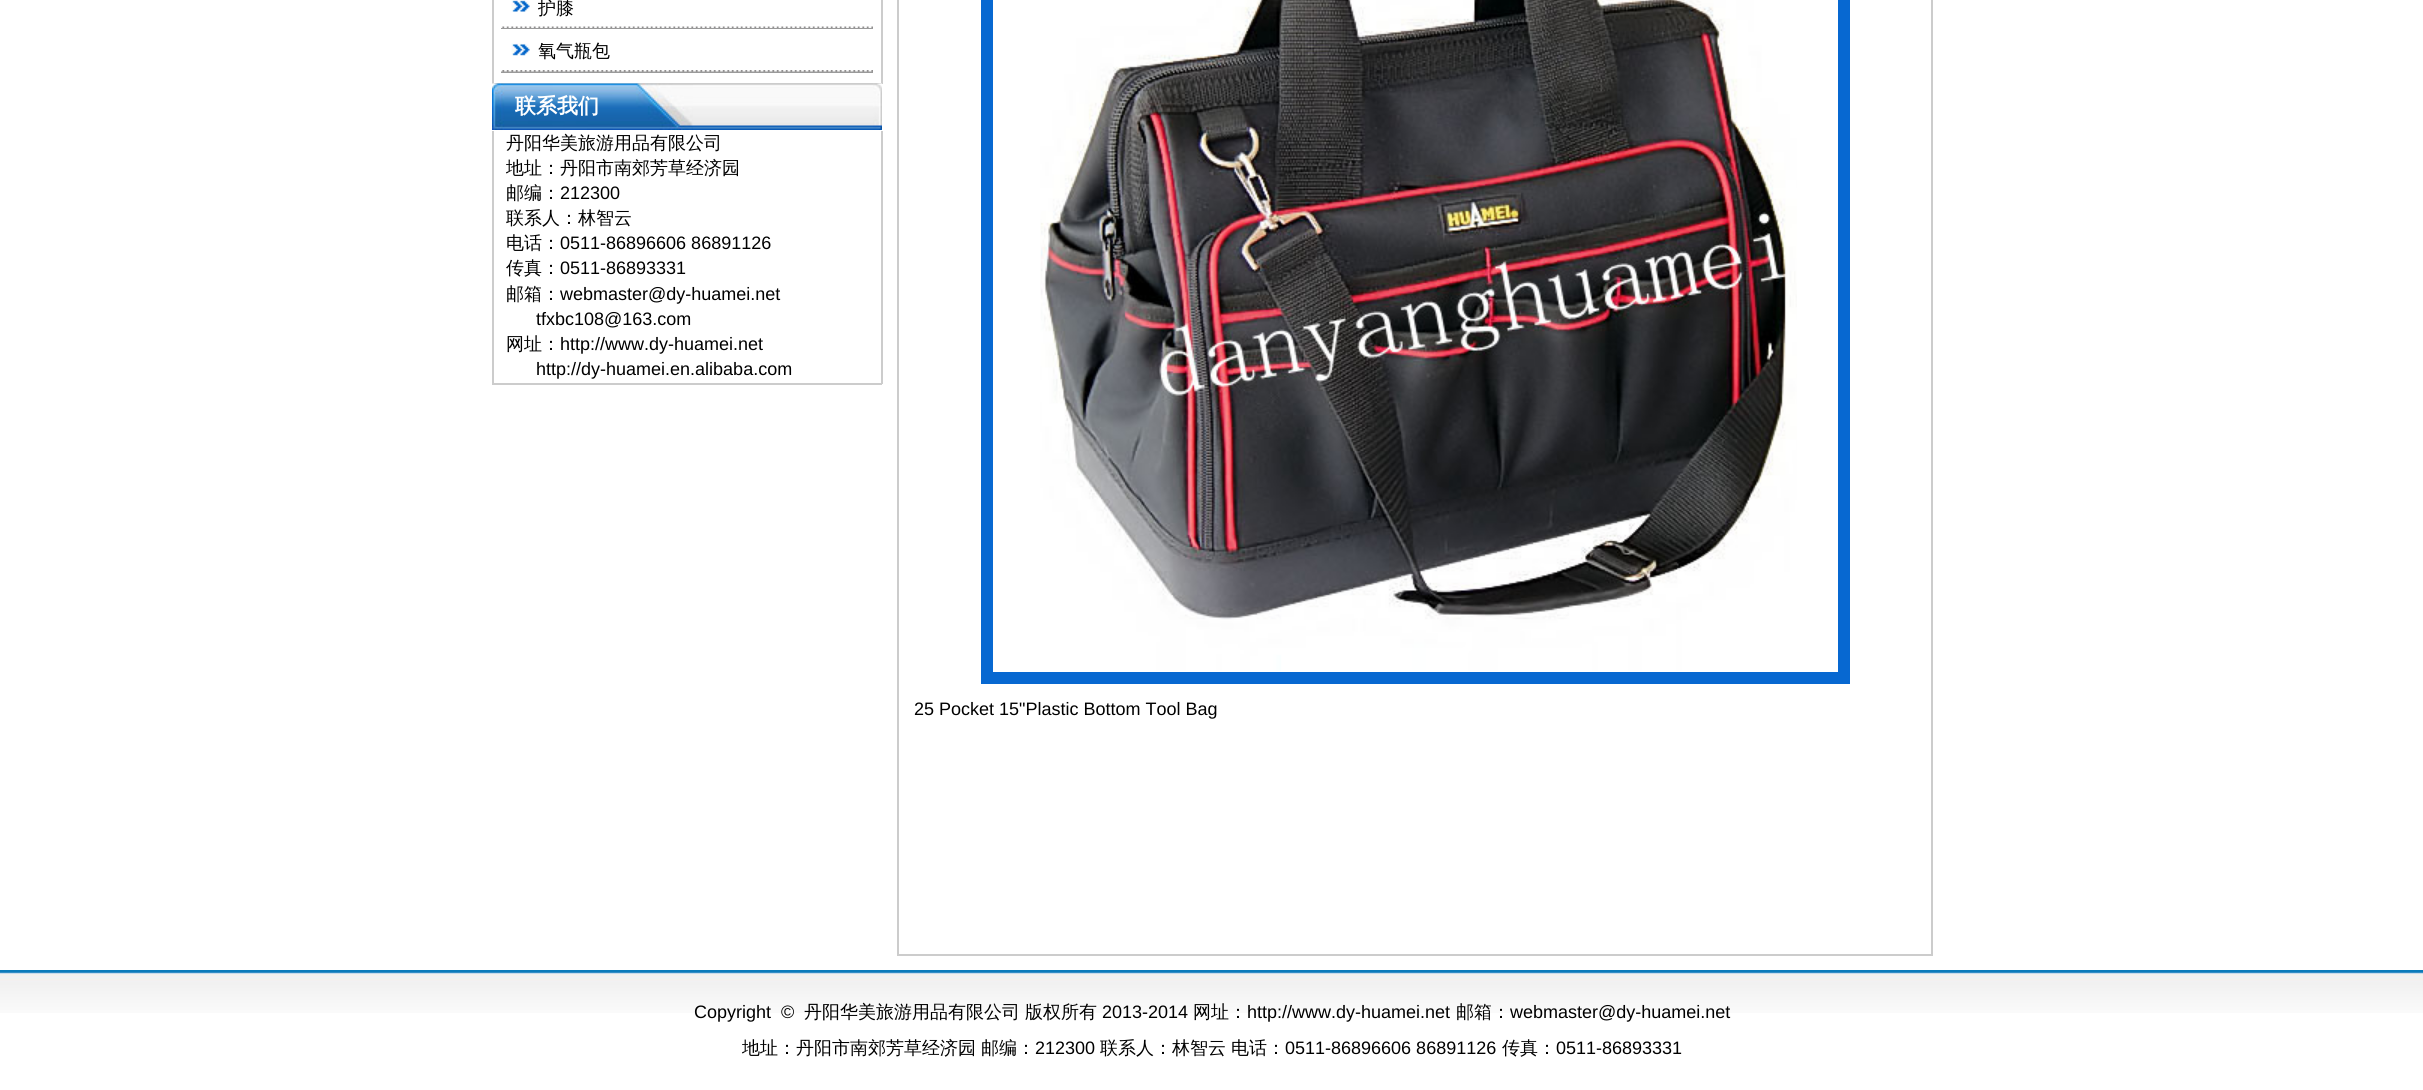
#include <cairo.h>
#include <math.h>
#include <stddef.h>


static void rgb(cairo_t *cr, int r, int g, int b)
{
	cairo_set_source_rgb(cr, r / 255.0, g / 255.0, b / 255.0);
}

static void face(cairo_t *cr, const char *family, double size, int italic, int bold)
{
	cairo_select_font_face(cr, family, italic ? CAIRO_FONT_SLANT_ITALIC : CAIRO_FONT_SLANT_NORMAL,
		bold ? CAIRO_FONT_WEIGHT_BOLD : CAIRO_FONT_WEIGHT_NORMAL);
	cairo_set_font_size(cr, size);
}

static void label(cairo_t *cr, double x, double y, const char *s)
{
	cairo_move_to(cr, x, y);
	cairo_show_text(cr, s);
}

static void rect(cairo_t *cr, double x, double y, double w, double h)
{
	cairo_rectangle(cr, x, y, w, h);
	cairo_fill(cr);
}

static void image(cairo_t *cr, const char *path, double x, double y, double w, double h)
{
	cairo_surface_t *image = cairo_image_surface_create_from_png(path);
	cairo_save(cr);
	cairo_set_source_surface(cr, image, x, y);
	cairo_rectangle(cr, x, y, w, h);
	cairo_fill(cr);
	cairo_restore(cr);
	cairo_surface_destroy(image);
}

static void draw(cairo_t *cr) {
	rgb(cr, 255, 255, 255);
	cairo_paint(cr);
	rgb(cr, 204, 204, 204);
	rect(cr, 881, 0, 2, 84);
	rect(cr, 492, 83, 390, 1);
	rect(cr, 492, 0, 2, 84);
	image(cr, "image0.png", 511, 0, 19, 12);
	face(cr, "WenQuanYi Zen Hei Medium", 18, 0, 0);
	rgb(cr, 0, 0, 0);
	label(cr, 538, 14, "护膝");
	rgb(cr, 154, 154, 154);
	rect(cr, 501, 28, 372, 1);
	image(cr, "image1.png", 501, 26, 372, 2);
	image(cr, "image2.png", 511, 43, 19, 13);
	rgb(cr, 0, 0, 0);
	label(cr, 538, 57, "氧气瓶包");
	rgb(cr, 154, 154, 154);
	rect(cr, 501, 71, 372, 2);
	image(cr, "image3.png", 501, 70, 372, 2);
	image(cr, "image4.png", 693, 84, 180, 46);
	image(cr, "image5.png", 492, 83, 201, 47);
	face(cr, "WenQuanYi Zen Hei", 21, 0, 1);
	rgb(cr, 255, 255, 255);
	label(cr, 515, 113, "联系我们");
	image(cr, "image6.png", 873, 83, 9, 47);
	rgb(cr, 204, 204, 204);
	rect(cr, 881, 131, 2, 253);
	rect(cr, 492, 383, 390, 2);
	rect(cr, 492, 131, 2, 253);
	face(cr, "WenQuanYi Zen Hei Medium", 18, 0, 0);
	rgb(cr, 0, 0, 0);
	label(cr, 506, 149, "丹阳华美旅游用品有限公司");
	label(cr, 506, 174, "地址：丹阳市南郊芳草经济园");
	label(cr, 506, 199, "邮编：");
	face(cr, "Liberation Sans", 18, 0, 0);
	label(cr, 560, 199, "212300");
	face(cr, "WenQuanYi Zen Hei Medium", 18, 0, 0);
	label(cr, 506, 224, "联系人：林智云");
	label(cr, 506, 249, "电话：");
	face(cr, "Liberation Sans", 18, 0, 0);
	label(cr, 560, 249, "0511-86896606 86891126");
	face(cr, "WenQuanYi Zen Hei Medium", 18, 0, 0);
	label(cr, 506, 274, "传真：");
	face(cr, "Liberation Sans", 18, 0, 0);
	label(cr, 560, 274, "0511-86893331");
	face(cr, "WenQuanYi Zen Hei Medium", 18, 0, 0);
	label(cr, 506, 300, "邮箱：");
	face(cr, "Liberation Sans", 18, 0, 0);
	label(cr, 560, 300, "webmaster@dy-huamei.net");
	label(cr, 536, 325, "tfxbc108@163.com");
	face(cr, "WenQuanYi Zen Hei Medium", 18, 0, 0);
	label(cr, 506, 350, "网址：");
	face(cr, "Liberation Sans", 18, 0, 0);
	label(cr, 560, 350, "http://www.dy-huamei.net");
	label(cr, 536, 375, "http://dy-huamei.en.alibaba.com");
	rgb(cr, 204, 204, 204);
	rect(cr, 1931, 0, 2, 956);
	rect(cr, 897, 954, 1035, 2);
	rect(cr, 897, 0, 2, 956);
	cairo_rectangle(cr, 987, -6, 857, 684);
	rgb(cr, 7, 104, 209);
	cairo_set_line_width(cr, 12);
	cairo_stroke(cr);
	image(cr, "image7.png", 1040, 0, 757, 671);
	rgb(cr, 0, 0, 0);
	label(cr, 914, 715, "25 Pocket 15\"Plastic Bottom Tool Bag");
	image(cr, "image8.png", 0, 970, 2423, 43);
	label(cr, 694, 1018, "Copyright  ©");
	face(cr, "WenQuanYi Zen Hei Medium", 18, 0, 0);
	label(cr, 804, 1018, "丹阳华美旅游用品有限公司");
	label(cr, 1025, 1018, "版权所有");
	face(cr, "Liberation Sans", 18, 0, 0);
	label(cr, 1102, 1018, "2013-2014");
	face(cr, "WenQuanYi Zen Hei Medium", 18, 0, 0);
	label(cr, 1193, 1018, "网址：");
	face(cr, "Liberation Sans", 18, 0, 0);
	label(cr, 1247, 1018, "http://www.dy-huamei.net");
	face(cr, "WenQuanYi Zen Hei Medium", 18, 0, 0);
	label(cr, 1456, 1018, "邮箱：");
	face(cr, "Liberation Sans", 18, 0, 0);
	label(cr, 1510, 1018, "webmaster@dy-huamei.net");
	face(cr, "WenQuanYi Zen Hei Medium", 18, 0, 0);
	label(cr, 742, 1054, "地址：丹阳市南郊芳草经济园");
	label(cr, 981, 1054, "邮编：");
	face(cr, "Liberation Sans", 18, 0, 0);
	label(cr, 1035, 1054, "212300");
	face(cr, "WenQuanYi Zen Hei Medium", 18, 0, 0);
	label(cr, 1100, 1054, "联系人：林智云");
	label(cr, 1231, 1054, "电话：");
	face(cr, "Liberation Sans", 18, 0, 0);
	label(cr, 1285, 1054, "0511-86896606 86891126");
	face(cr, "WenQuanYi Zen Hei Medium", 18, 0, 0);
	label(cr, 1502, 1054, "传真：");
	face(cr, "Liberation Sans", 18, 0, 0);
	label(cr, 1556, 1054, "0511-86893331");
}

int main(void) {
	cairo_surface_t *surface = cairo_image_surface_create(CAIRO_FORMAT_RGB24, 2423, 1090);
	cairo_t *cr = cairo_create(surface);
	cairo_font_options_t *options = cairo_font_options_create();
	cairo_font_options_set_hint_metrics(options, CAIRO_HINT_METRICS_OFF);
	cairo_font_options_set_hint_style(options, CAIRO_HINT_STYLE_NONE);
	cairo_set_font_options(cr, options);
	cairo_set_miter_limit(cr, 4);
	draw(cr);
	cairo_surface_write_to_png(surface, "render.png");
	cairo_font_options_destroy(options);
	cairo_destroy(cr);
	cairo_surface_destroy(surface);
	return 0;
}
